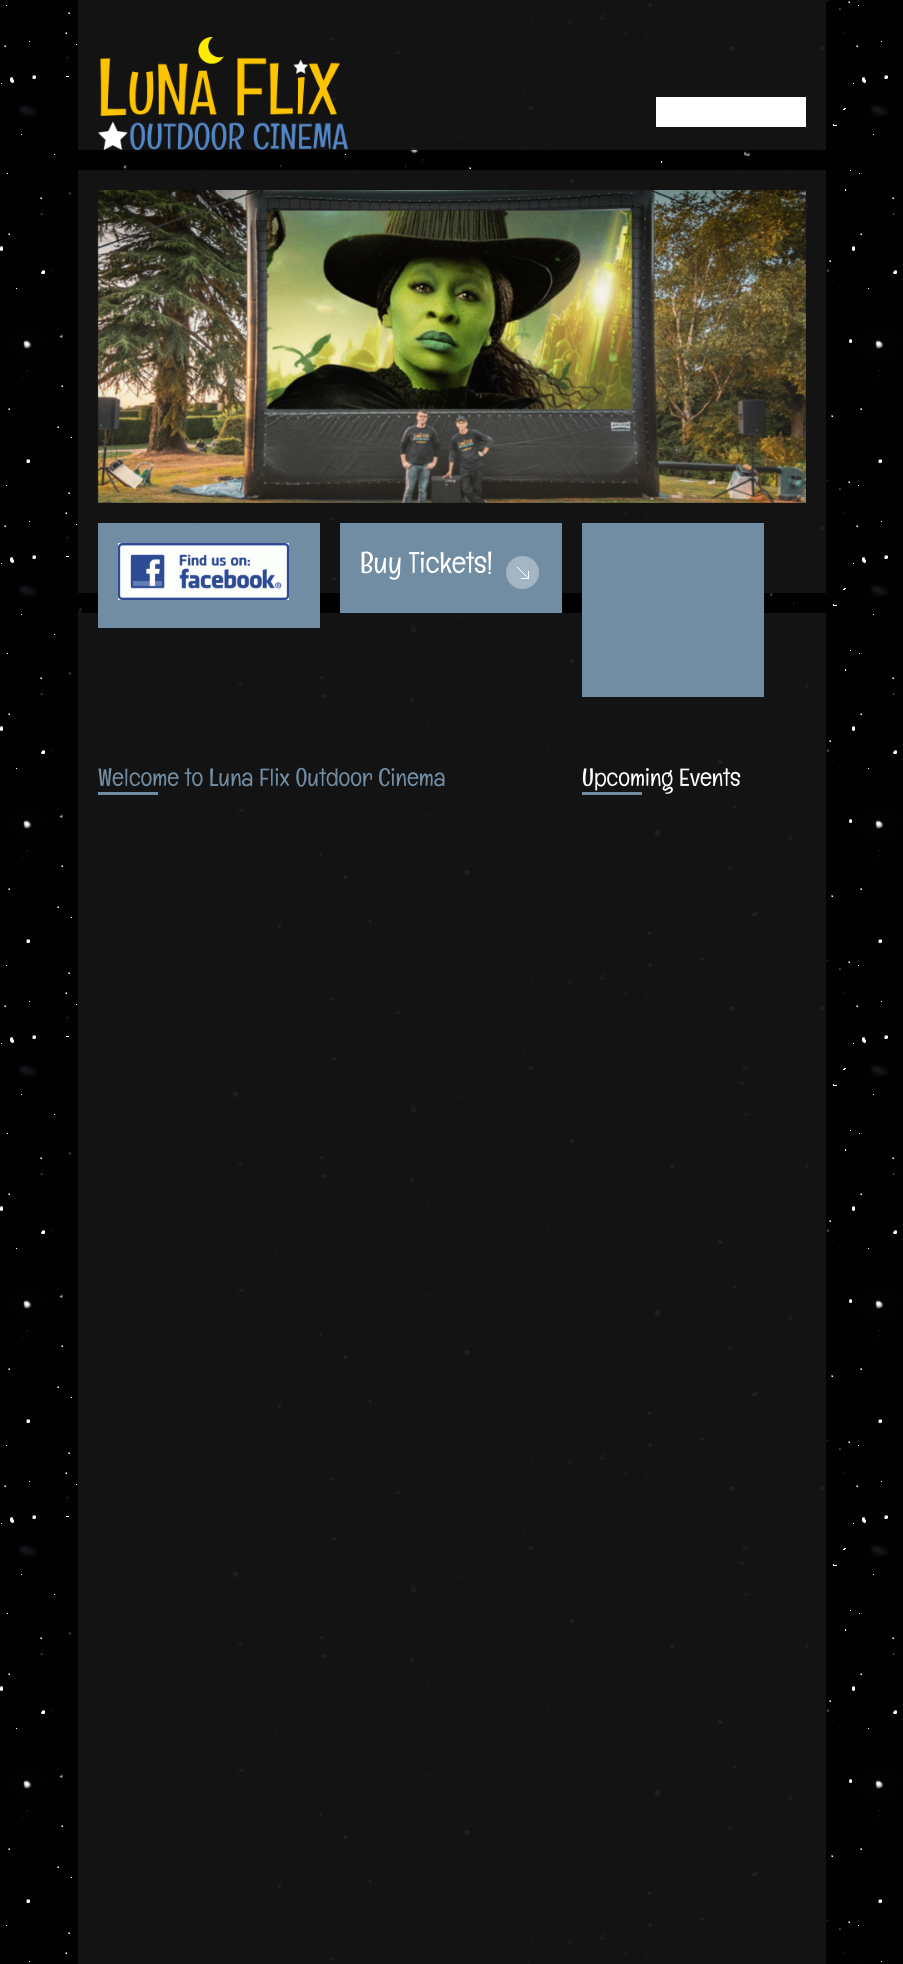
#include <cairo.h>
#include <math.h>
#include <stddef.h>


static void rgb(cairo_t *cr, int r, int g, int b)
{
	cairo_set_source_rgb(cr, r / 255.0, g / 255.0, b / 255.0);
}

static void face(cairo_t *cr, const char *family, double size, int italic, int bold)
{
	cairo_select_font_face(cr, family, italic ? CAIRO_FONT_SLANT_ITALIC : CAIRO_FONT_SLANT_NORMAL,
		bold ? CAIRO_FONT_WEIGHT_BOLD : CAIRO_FONT_WEIGHT_NORMAL);
	cairo_set_font_size(cr, size);
}

static void label(cairo_t *cr, double x, double y, const char *s)
{
	cairo_move_to(cr, x, y);
	cairo_show_text(cr, s);
}

static void rect(cairo_t *cr, double x, double y, double w, double h)
{
	cairo_rectangle(cr, x, y, w, h);
	cairo_fill(cr);
}

static void image(cairo_t *cr, const char *path, double x, double y, double w, double h)
{
	cairo_surface_t *image = cairo_image_surface_create_from_png(path);
	cairo_save(cr);
	cairo_set_source_surface(cr, image, x, y);
	cairo_rectangle(cr, x, y, w, h);
	cairo_fill(cr);
	cairo_restore(cr);
	cairo_surface_destroy(image);
}

static void draw(cairo_t *cr) {
	rgb(cr, 255, 255, 255);
	cairo_paint(cr);
	image(cr, "image0.png", 0, 0, 903, 1964);
	cairo_set_source_rgba(cr, 0.082, 0.082, 0.082, 0.95);
	rect(cr, 78, 0, 748, 150);
	image(cr, "image1.png", 98, 37, 250, 113);
	rgb(cr, 255, 255, 255);
	rect(cr, 656, 97, 150, 30);
	cairo_set_source_rgba(cr, 0.082, 0.082, 0.082, 0.95);
	rect(cr, 78, 170, 748, 423);
	image(cr, "image2.png", 97, 190, 709, 313);
	rect(cr, 78, 613, 748, 1351);
	rgb(cr, 113, 141, 163);
	rect(cr, 98, 523, 222, 105);
	image(cr, "image3.png", 118, 543, 171, 57);
	rect(cr, 340, 523, 222, 90);
	face(cr, "Englebert", 30, 0, 0);
	rgb(cr, 255, 255, 255);
	label(cr, 360, 573, "Buy Tickets!");
	image(cr, "image4.png", 506, 556, 33, 33);
	rgb(cr, 113, 141, 163);
	rect(cr, 582, 523, 182, 174);
	face(cr, "Englebert", 25, 0, 0);
	label(cr, 98, 786, "Welcome to Luna Flix Outdoor Cinema");
	rect(cr, 98, 792, 60, 3);
	rgb(cr, 255, 255, 255);
	label(cr, 582, 786, "Upcoming Events");
	rgb(cr, 113, 141, 163);
	rect(cr, 582, 792, 60, 3);
}

int main(void) {
	cairo_surface_t *surface = cairo_image_surface_create(CAIRO_FORMAT_RGB24, 903, 1964);
	cairo_t *cr = cairo_create(surface);
	cairo_font_options_t *options = cairo_font_options_create();
	cairo_font_options_set_hint_metrics(options, CAIRO_HINT_METRICS_OFF);
	cairo_font_options_set_hint_style(options, CAIRO_HINT_STYLE_NONE);
	cairo_set_font_options(cr, options);
	cairo_set_miter_limit(cr, 4);
	draw(cr);
	cairo_surface_write_to_png(surface, "render.png");
	cairo_font_options_destroy(options);
	cairo_destroy(cr);
	cairo_surface_destroy(surface);
	return 0;
}
